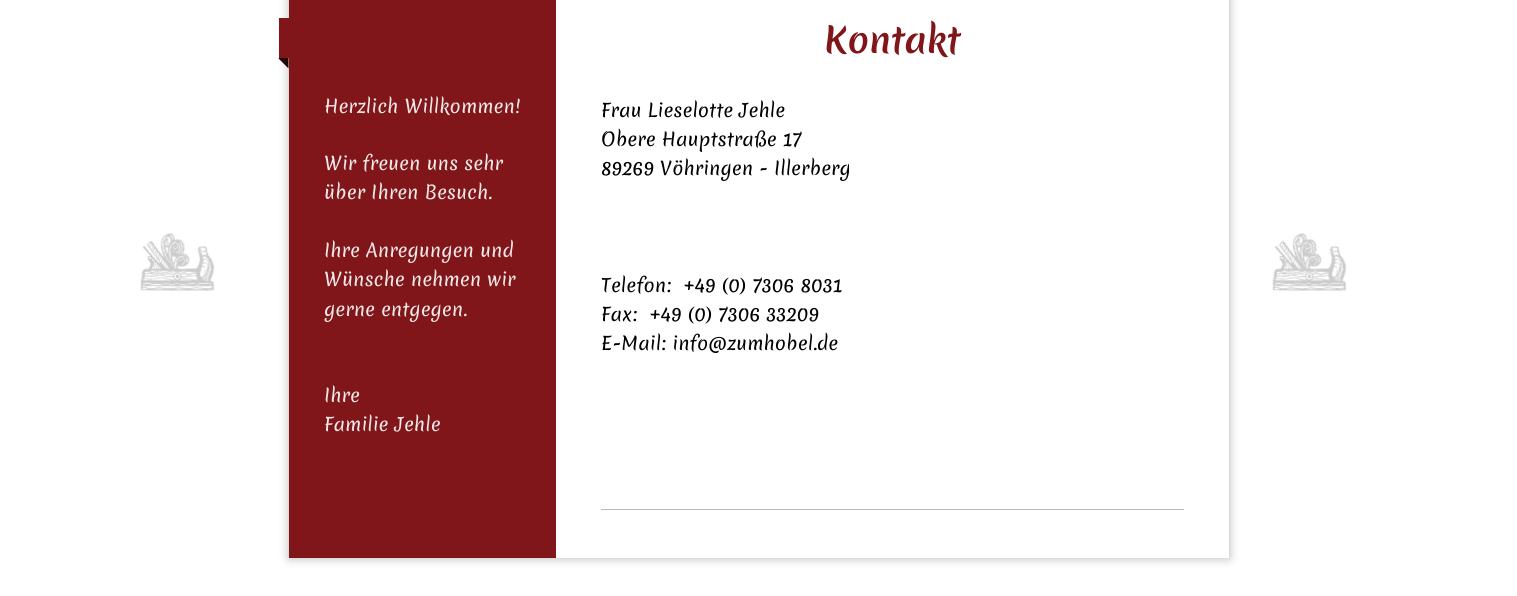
#include <cairo.h>
#include <math.h>
#include <stddef.h>


static void rgb(cairo_t *cr, int r, int g, int b)
{
	cairo_set_source_rgb(cr, r / 255.0, g / 255.0, b / 255.0);
}

static void face(cairo_t *cr, const char *family, double size, int italic, int bold)
{
	cairo_select_font_face(cr, family, italic ? CAIRO_FONT_SLANT_ITALIC : CAIRO_FONT_SLANT_NORMAL,
		bold ? CAIRO_FONT_WEIGHT_BOLD : CAIRO_FONT_WEIGHT_NORMAL);
	cairo_set_font_size(cr, size);
}

static void label(cairo_t *cr, double x, double y, const char *s)
{
	cairo_move_to(cr, x, y);
	cairo_show_text(cr, s);
}

static void rect(cairo_t *cr, double x, double y, double w, double h)
{
	cairo_rectangle(cr, x, y, w, h);
	cairo_fill(cr);
}

static void rrect(cairo_t *cr, double x, double y, double w, double h, double r)
{
	cairo_new_sub_path(cr);
	cairo_arc(cr, x + w - r, y + h - r, r, 0, M_PI / 2);
	cairo_arc(cr, x + r, y + h - r, r, M_PI / 2, M_PI);
	cairo_arc(cr, x + r, y + r, r, M_PI, 1.5 * M_PI);
	cairo_arc(cr, x + w - r, y + r, r, 1.5 * M_PI, 2 * M_PI);
	cairo_close_path(cr);
}

static void soft_shadow(cairo_t *cr, double x, double y, double w, double h, double r, double blur, double alpha)
{
	cairo_push_group_with_content(cr, CAIRO_CONTENT_ALPHA);
	cairo_set_operator(cr, CAIRO_OPERATOR_SOURCE);
	for (int i = 15; i >= -15 && fmin(w, h) + blur * i / 3 > 0; i -= 2) {
		double e = blur * i / 6;
		cairo_set_source_rgba(cr, 0, 0, 0, alpha * erfc((i - 1) / 8.5) / 2);
		rrect(cr, x - e, y - e, w + 2 * e, h + 2 * e, fmax(0, fmin(r + e + blur * .6, fmin(w, h) / 2 + e)));
		cairo_fill(cr);
	}
	cairo_pattern_t *soft = cairo_pop_group(cr);
	cairo_mask(cr, soft);
	cairo_pattern_destroy(soft);
}

static void image(cairo_t *cr, const char *path, double x, double y, double w, double h)
{
	cairo_surface_t *image = cairo_image_surface_create_from_png(path);
	cairo_save(cr);
	cairo_set_source_surface(cr, image, x, y);
	cairo_rectangle(cr, x, y, w, h);
	cairo_fill(cr);
	cairo_restore(cr);
	cairo_surface_destroy(image);
}

static void draw(cairo_t *cr) {
	rgb(cr, 255, 255, 255);
	cairo_paint(cr);
	image(cr, "image0.png", 140, 233, 1207, 58);
	rgb(cr, 41, 7, 8);
	cairo_new_path(cr);
	cairo_move_to(cr, 288.5, 48.5);
	cairo_line_to(cr, 288.5, 68.5);
	cairo_line_to(cr, 278.5, 58.5);
	cairo_close_path(cr);
	cairo_fill(cr);
	rgb(cr, 0, 0, 0);
	soft_shadow(cr, 289, -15, 940, 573, 0, 5, 0.3);
	rgb(cr, 255, 255, 255);
	rect(cr, 556, 0, 673, 558);
	rgb(cr, 128, 22, 25);
	rect(cr, 289, 0, 267, 558);
	face(cr, "Merienda", 35, 0, 1);
	label(cr, 824, 53, "Kontakt");
	face(cr, "Merienda", 18.25, 0, 0);
	rgb(cr, 0, 0, 0);
	label(cr, 601, 117, "Frau Lieselotte Jehle");
	label(cr, 601, 146, "Obere Hauptstraße 17");
	label(cr, 601, 175, "89269 Vöhringen - Illerberg");
	label(cr, 601, 292, "Telefon:  +49 (0) 7306 8031");
	label(cr, 601, 321, "Fax:  +49 (0) 7306 33209");
	label(cr, 601, 350, "E-Mail: info@zumhobel.de");
	rgb(cr, 186, 186, 186);
	rect(cr, 601, 509, 583, 1);
	rgb(cr, 128, 22, 25);
	rect(cr, 279, 18, 10, 40);
	rgb(cr, 242, 232, 232);
	label(cr, 324, 113, "Herzlich Willkommen!");
	label(cr, 324, 170, "Wir freuen uns sehr");
	label(cr, 324, 199, "über Ihren Besuch.");
	label(cr, 324, 257, "Ihre Anregungen und");
	label(cr, 324, 286, "Wünsche nehmen wir");
	label(cr, 324, 316, "gerne entgegen.");
	label(cr, 324, 402, "Ihre");
	label(cr, 324, 431, "Familie Jehle");
}

int main(void) {
	cairo_surface_t *surface = cairo_image_surface_create(CAIRO_FORMAT_RGB24, 1517, 596);
	cairo_t *cr = cairo_create(surface);
	cairo_font_options_t *options = cairo_font_options_create();
	cairo_font_options_set_hint_metrics(options, CAIRO_HINT_METRICS_OFF);
	cairo_font_options_set_hint_style(options, CAIRO_HINT_STYLE_NONE);
	cairo_set_font_options(cr, options);
	cairo_set_miter_limit(cr, 4);
	draw(cr);
	cairo_surface_write_to_png(surface, "render.png");
	cairo_font_options_destroy(options);
	cairo_destroy(cr);
	cairo_surface_destroy(surface);
	return 0;
}
